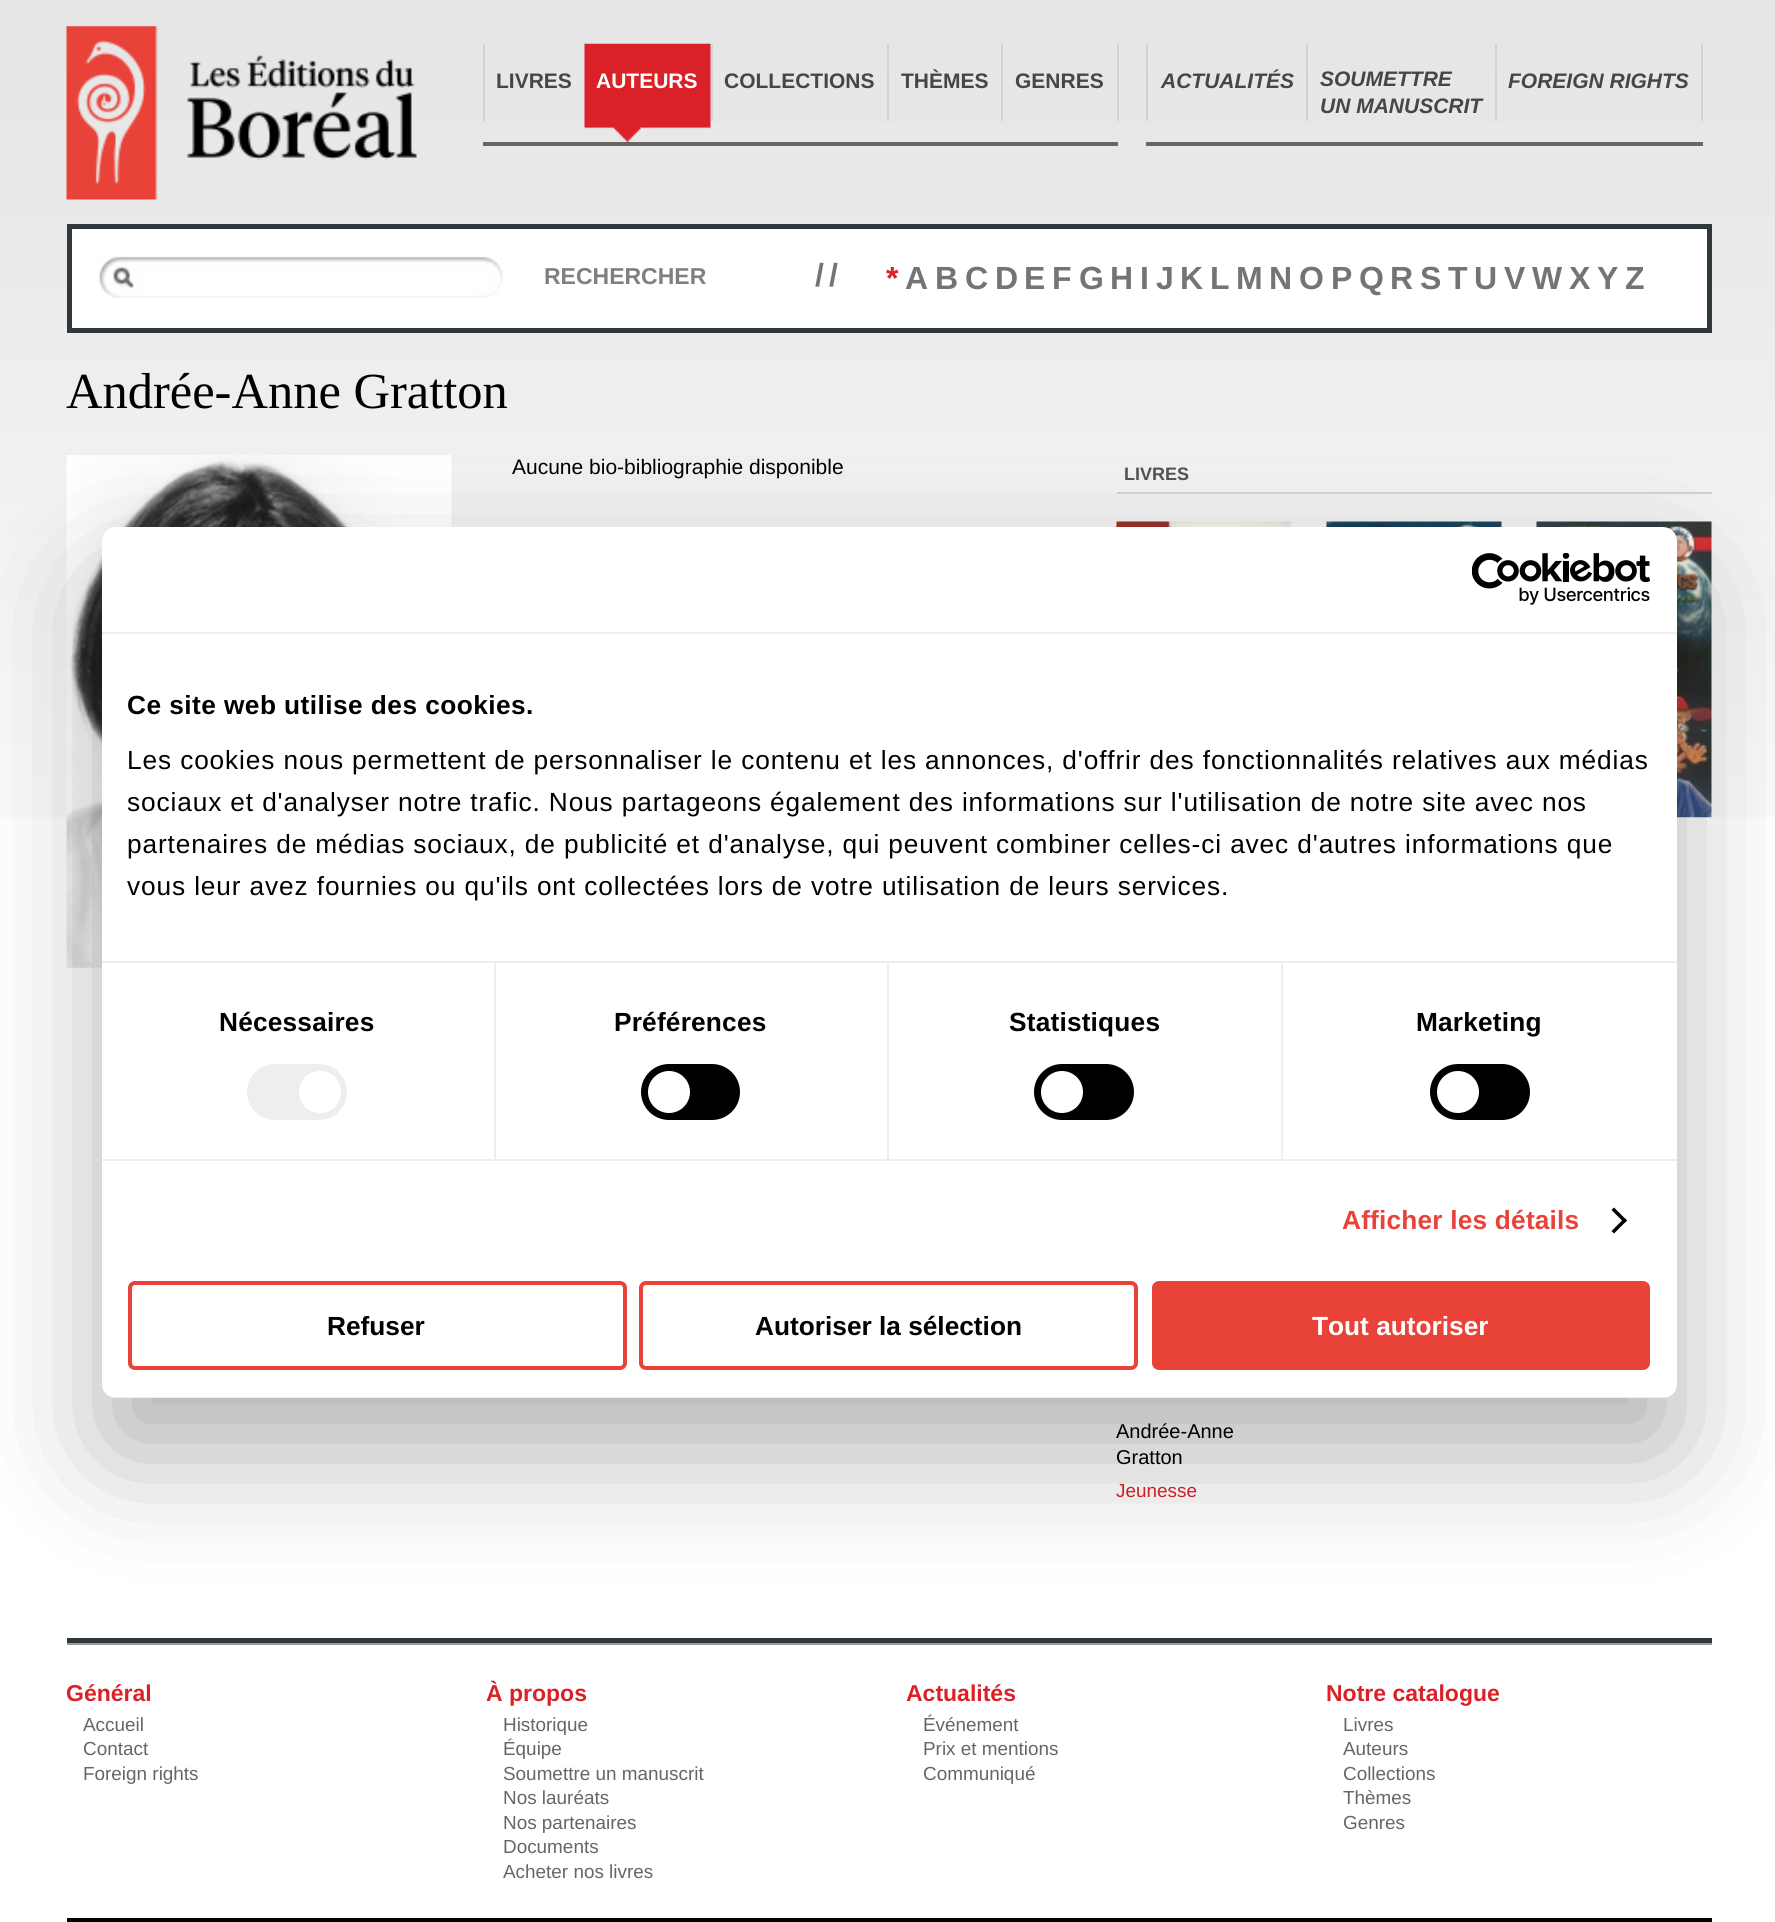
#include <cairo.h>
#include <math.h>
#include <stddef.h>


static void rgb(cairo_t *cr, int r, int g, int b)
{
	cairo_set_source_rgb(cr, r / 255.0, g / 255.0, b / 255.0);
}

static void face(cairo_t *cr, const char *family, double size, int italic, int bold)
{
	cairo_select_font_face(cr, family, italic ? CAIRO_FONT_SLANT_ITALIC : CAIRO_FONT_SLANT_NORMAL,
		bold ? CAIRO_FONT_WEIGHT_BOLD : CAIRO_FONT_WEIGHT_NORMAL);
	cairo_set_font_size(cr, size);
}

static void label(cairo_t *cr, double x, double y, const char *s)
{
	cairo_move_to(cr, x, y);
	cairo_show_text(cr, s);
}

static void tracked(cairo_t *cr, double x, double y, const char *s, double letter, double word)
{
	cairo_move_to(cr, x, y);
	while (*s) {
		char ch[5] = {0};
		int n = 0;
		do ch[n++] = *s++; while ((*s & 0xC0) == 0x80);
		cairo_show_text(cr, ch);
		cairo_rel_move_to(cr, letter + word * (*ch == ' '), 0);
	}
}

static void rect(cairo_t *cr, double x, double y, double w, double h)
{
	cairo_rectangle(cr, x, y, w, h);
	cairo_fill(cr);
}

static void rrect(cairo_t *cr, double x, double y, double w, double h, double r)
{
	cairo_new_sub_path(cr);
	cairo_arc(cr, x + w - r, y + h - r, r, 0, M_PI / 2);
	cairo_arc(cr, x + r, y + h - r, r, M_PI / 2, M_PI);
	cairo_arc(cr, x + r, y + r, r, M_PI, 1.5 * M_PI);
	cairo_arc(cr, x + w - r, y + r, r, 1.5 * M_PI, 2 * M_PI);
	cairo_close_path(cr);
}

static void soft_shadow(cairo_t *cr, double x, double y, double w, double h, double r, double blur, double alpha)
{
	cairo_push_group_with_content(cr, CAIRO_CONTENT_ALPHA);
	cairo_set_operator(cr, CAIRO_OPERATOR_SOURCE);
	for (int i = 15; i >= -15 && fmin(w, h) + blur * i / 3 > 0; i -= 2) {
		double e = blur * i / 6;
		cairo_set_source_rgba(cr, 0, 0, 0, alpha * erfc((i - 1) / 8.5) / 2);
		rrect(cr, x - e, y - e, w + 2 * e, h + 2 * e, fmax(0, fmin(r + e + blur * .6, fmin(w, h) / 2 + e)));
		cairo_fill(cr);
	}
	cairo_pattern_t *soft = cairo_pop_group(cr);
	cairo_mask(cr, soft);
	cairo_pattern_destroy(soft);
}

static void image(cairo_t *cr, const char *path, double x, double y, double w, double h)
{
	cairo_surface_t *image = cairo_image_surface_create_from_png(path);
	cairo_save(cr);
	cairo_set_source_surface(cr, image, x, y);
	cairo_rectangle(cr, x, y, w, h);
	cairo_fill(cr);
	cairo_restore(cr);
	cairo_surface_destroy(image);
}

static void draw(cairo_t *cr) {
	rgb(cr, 255, 255, 255);
	cairo_paint(cr);
	image(cr, "image0.png", 0, 0, 1775, 817);
	image(cr, "image1.png", 66, 26, 351, 174);
	rgb(cr, 102, 102, 102);
	rect(cr, 483, 142, 635, 4);
	rgb(cr, 210, 210, 210);
	rect(cr, 483, 44, 2, 77);
	face(cr, "Liberation Sans", 21, 0, 1);
	rgb(cr, 70, 70, 70);
	label(cr, 496, 88, "LIVRES");
	image(cr, "image2.png", 584, 43, 127, 99);
	rgb(cr, 255, 255, 255);
	label(cr, 596, 88, "AUTEURS");
	rgb(cr, 210, 210, 210);
	rect(cr, 711, 44, 2, 77);
	rgb(cr, 70, 70, 70);
	label(cr, 724, 88, "COLLECTIONS");
	rgb(cr, 210, 210, 210);
	rect(cr, 887, 44, 2, 77);
	rgb(cr, 70, 70, 70);
	label(cr, 901, 88, "THÈMES");
	rgb(cr, 210, 210, 210);
	rect(cr, 1117, 44, 2, 77);
	rect(cr, 1001, 44, 2, 77);
	rgb(cr, 70, 70, 70);
	label(cr, 1015, 88, "GENRES");
	rgb(cr, 102, 102, 102);
	rect(cr, 1146, 142, 557, 4);
	rgb(cr, 210, 210, 210);
	rect(cr, 1146, 44, 2, 77);
	face(cr, "Liberation Sans", 21, 1, 1);
	rgb(cr, 70, 70, 70);
	label(cr, 1161, 88, "ACTUALITÉS");
	rgb(cr, 210, 210, 210);
	rect(cr, 1306, 44, 2, 77);
	rgb(cr, 70, 70, 70);
	label(cr, 1320, 86, "SOUMETTRE");
	label(cr, 1320, 113, "UN MANUSCRIT");
	rgb(cr, 210, 210, 210);
	rect(cr, 1701, 44, 2, 77);
	rect(cr, 1495, 44, 2, 77);
	rgb(cr, 70, 70, 70);
	label(cr, 1508, 88, "FOREIGN RIGHTS");
	rgb(cr, 255, 255, 255);
	cairo_rectangle(cr, 69.5, 226.5, 1640, 104);
	cairo_fill_preserve(cr);
	rgb(cr, 49, 56, 59);
	cairo_set_line_width(cr, 5);
	cairo_stroke(cr);
	image(cr, "image3.png", 99, 256, 404, 42);
	rgb(cr, 255, 255, 255);
	rect(cr, 478, 268, 3, 1);
	face(cr, "Liberation Sans", 23, 0, 1);
	rgb(cr, 127, 127, 127);
	label(cr, 544, 284, "RECHERCHER");
	face(cr, "Liberation Sans", 32, 0, 1);
	rgb(cr, 116, 116, 116);
	tracked(cr, 815, 286, "//", 5, 0);
	rgb(cr, 218, 33, 40);
	label(cr, 886, 289, "*");
	rgb(cr, 116, 116, 116);
	label(cr, 905, 289, "A");
	label(cr, 935, 289, "B");
	label(cr, 965, 289, "C");
	label(cr, 995, 289, "D");
	label(cr, 1024, 289, "E");
	label(cr, 1052, 289, "F");
	label(cr, 1079, 289, "G");
	label(cr, 1110, 289, "H");
	label(cr, 1140, 289, "I");
	label(cr, 1156, 289, "J");
	label(cr, 1180, 289, "K");
	label(cr, 1210, 289, "L");
	label(cr, 1236, 289, "M");
	label(cr, 1269, 289, "N");
	label(cr, 1299, 289, "O");
	label(cr, 1331, 289, "P");
	label(cr, 1359, 289, "Q");
	label(cr, 1390, 289, "R");
	label(cr, 1420, 289, "S");
	label(cr, 1448, 289, "T");
	label(cr, 1474, 289, "U");
	label(cr, 1504, 289, "V");
	label(cr, 1532, 289, "W");
	label(cr, 1569, 289, "X");
	label(cr, 1597, 289, "Y");
	label(cr, 1625, 289, "Z");
	face(cr, "Liberation Serif", 50.5, 0, 0);
	rgb(cr, 0, 0, 0);
	label(cr, 66, 408, "Andrée-Anne Gratton");
	image(cr, "image4.png", 66, 455, 386, 513);
	face(cr, "Liberation Sans", 21, 0, 0);
	label(cr, 512, 474, "Aucune bio-bibliographie disponible");
	rgb(cr, 208, 210, 210);
	rect(cr, 1117, 492, 595, 2);
	face(cr, "Liberation Sans", 18, 0, 1);
	rgb(cr, 82, 82, 82);
	label(cr, 1124, 480, "LIVRES");
	image(cr, "image5.png", 1116, 521, 176, 6);
	image(cr, "image6.png", 1326, 521, 176, 6);
	image(cr, "image7.png", 1536, 521, 176, 297);
	face(cr, "Liberation Sans", 20, 0, 0);
	rgb(cr, 0, 0, 0);
	label(cr, 1116, 1438, "Andrée-Anne");
	label(cr, 1116, 1464, "Gratton");
	face(cr, "Liberation Sans", 18.9, 0, 0);
	rgb(cr, 218, 33, 40);
	label(cr, 1116, 1497, "Jeunesse");
	rgb(cr, 49, 56, 59);
	rect(cr, 67, 1638, 1645, 5);
	rgb(cr, 152, 156, 157);
	rect(cr, 67, 1643, 1645, 2);
	face(cr, "Liberation Sans", 23, 0, 1);
	rgb(cr, 218, 33, 40);
	label(cr, 66, 1701, "Général");
	face(cr, "Liberation Sans", 18.9, 0, 0);
	rgb(cr, 102, 102, 102);
	label(cr, 83, 1731, "Accueil");
	label(cr, 83, 1755, "Contact");
	label(cr, 83, 1780, "Foreign rights");
	face(cr, "Liberation Sans", 23, 0, 1);
	rgb(cr, 218, 33, 40);
	label(cr, 486, 1701, "À propos");
	face(cr, "Liberation Sans", 18.9, 0, 0);
	rgb(cr, 102, 102, 102);
	label(cr, 503, 1731, "Historique");
	label(cr, 503, 1755, "Équipe");
	label(cr, 503, 1780, "Soumettre un manuscrit");
	label(cr, 503, 1804, "Nos lauréats");
	label(cr, 503, 1829, "Nos partenaires");
	label(cr, 503, 1853, "Documents");
	label(cr, 503, 1878, "Acheter nos livres");
	face(cr, "Liberation Sans", 23, 0, 1);
	rgb(cr, 218, 33, 40);
	label(cr, 906, 1701, "Actualités");
	face(cr, "Liberation Sans", 18.9, 0, 0);
	rgb(cr, 102, 102, 102);
	label(cr, 923, 1731, "Événement");
	label(cr, 923, 1755, "Prix et mentions");
	label(cr, 923, 1780, "Communiqué");
	face(cr, "Liberation Sans", 23, 0, 1);
	rgb(cr, 218, 33, 40);
	label(cr, 1326, 1701, "Notre catalogue");
	face(cr, "Liberation Sans", 18.9, 0, 0);
	rgb(cr, 102, 102, 102);
	label(cr, 1343, 1731, "Livres");
	label(cr, 1343, 1755, "Auteurs");
	label(cr, 1343, 1780, "Collections");
	label(cr, 1343, 1804, "Thèmes");
	label(cr, 1343, 1829, "Genres");
	rgb(cr, 0, 0, 0);
	rect(cr, 67, 1918, 1645, 4);
	rgb(cr, 0, 0, 0);
	soft_shadow(cr, 102, 583, 1575, 871, 14, 59.5, 0.3);
	rgb(cr, 255, 255, 255);
	rrect(cr, 102, 527, 1575, 871, 14);
	cairo_fill(cr);
	rgb(cr, 238, 238, 238);
	rect(cr, 102, 632, 1575, 2);
	image(cr, "image8.png", 1472, 553, 178, 52);
	rect(cr, 102, 961, 1575, 2);
	face(cr, "Liberation Sans", 26.25, 0, 1);
	rgb(cr, 0, 0, 0);
	tracked(cr, 127, 714, "Ce site web utilise des cookies.", 0.45, 0);
	face(cr, "Liberation Sans", 26.25, 0, 0);
	tracked(cr, 127, 769, "Les cookies nous permettent de personnaliser le contenu et les annonces, d'offrir des fonctionnalités relatives aux médias", 0.88, 0);
	tracked(cr, 127, 811, "sociaux et d'analyser notre trafic. Nous partageons également des informations sur l'utilisation de notre site avec nos", 0.88, 0);
	tracked(cr, 127, 853, "partenaires de médias sociaux, de publicité et d'analyse, qui peuvent combiner celles-ci avec d'autres informations que", 0.88, 0);
	tracked(cr, 127, 895, "vous leur avez fournies ou qu'ils ont collectées lors de votre utilisation de leurs services.", 0.88, 0);
	rgb(cr, 238, 238, 238);
	rect(cr, 102, 1159, 1575, 2);
	rect(cr, 494, 963, 2, 196);
	face(cr, "Liberation Sans", 26.25, 0, 1);
	rgb(cr, 0, 0, 0);
	tracked(cr, 219, 1031, "Nécessaires", 0.2, 0);
	rgb(cr, 238, 238, 238);
	rrect(cr, 247, 1064, 100, 56, 28);
	cairo_fill(cr);
	rgb(cr, 255, 255, 255);
	cairo_arc(cr, 320, 1092, 21, 0, 2 * M_PI);
	cairo_fill(cr);
	rgb(cr, 238, 238, 238);
	rect(cr, 887, 963, 2, 196);
	rgb(cr, 0, 0, 0);
	tracked(cr, 614, 1031, "Préférences", 0.2, 0);
	rrect(cr, 641, 1064, 99, 56, 28);
	cairo_fill(cr);
	rgb(cr, 255, 255, 255);
	cairo_arc(cr, 669, 1092, 21, 0, 2 * M_PI);
	cairo_fill(cr);
	rgb(cr, 238, 238, 238);
	rect(cr, 1281, 963, 2, 196);
	rgb(cr, 0, 0, 0);
	tracked(cr, 1009, 1031, "Statistiques", 0.2, 0);
	rrect(cr, 1034, 1064, 100, 56, 28);
	cairo_fill(cr);
	rgb(cr, 255, 255, 255);
	cairo_arc(cr, 1062, 1092, 21, 0, 2 * M_PI);
	cairo_fill(cr);
	rgb(cr, 0, 0, 0);
	tracked(cr, 1416, 1031, "Marketing", 0.2, 0);
	rrect(cr, 1430, 1064, 100, 56, 28);
	cairo_fill(cr);
	rgb(cr, 255, 255, 255);
	cairo_arc(cr, 1458, 1092, 21, 0, 2 * M_PI);
	cairo_fill(cr);
	rgb(cr, 233, 66, 57);
	tracked(cr, 1342, 1229, "Afficher les détails", 0.2, 0);
	rgb(cr, 0, 0, 0);
	cairo_new_path(cr);
	cairo_move_to(cr, 1614, 1207.5);
	cairo_line_to(cr, 1627, 1220.5);
	cairo_line_to(cr, 1624.5, 1223);
	cairo_line_to(cr, 1611.5, 1210);
	cairo_close_path(cr);
	cairo_fill(cr);
	cairo_new_path(cr);
	cairo_move_to(cr, 1624.5, 1218);
	cairo_line_to(cr, 1627, 1220.5);
	cairo_line_to(cr, 1614, 1233.5);
	cairo_line_to(cr, 1611.5, 1231);
	cairo_close_path(cr);
	cairo_fill(cr);
	cairo_save(cr);
	rrect(cr, 102, 527, 1575, 871, 14);
	cairo_clip(cr);
	rgb(cr, 238, 238, 238);
	rect(cr, 111, 1397, 1557, 1);
	cairo_restore(cr);
	rrect(cr, 130, 1283, 495, 85, 5);
	rgb(cr, 233, 66, 57);
	cairo_set_line_width(cr, 4);
	cairo_stroke(cr);
	rgb(cr, 0, 0, 0);
	label(cr, 327, 1335, "Refuser");
	rrect(cr, 641, 1283, 495, 85, 5);
	rgb(cr, 233, 66, 57);
	cairo_stroke(cr);
	rgb(cr, 0, 0, 0);
	label(cr, 755, 1335, "Autoriser la sélection");
	rgb(cr, 233, 66, 57);
	rrect(cr, 1154, 1283, 494, 85, 5);
	cairo_fill_preserve(cr);
	cairo_stroke(cr);
	rgb(cr, 255, 255, 255);
	label(cr, 1312, 1335, "Tout autoriser");
}

int main(void) {
	cairo_surface_t *surface = cairo_image_surface_create(CAIRO_FORMAT_RGB24, 1775, 1922);
	cairo_t *cr = cairo_create(surface);
	cairo_font_options_t *options = cairo_font_options_create();
	cairo_font_options_set_hint_metrics(options, CAIRO_HINT_METRICS_OFF);
	cairo_font_options_set_hint_style(options, CAIRO_HINT_STYLE_NONE);
	cairo_set_font_options(cr, options);
	cairo_set_miter_limit(cr, 4);
	draw(cr);
	cairo_surface_write_to_png(surface, "render.png");
	cairo_font_options_destroy(options);
	cairo_destroy(cr);
	cairo_surface_destroy(surface);
	return 0;
}
